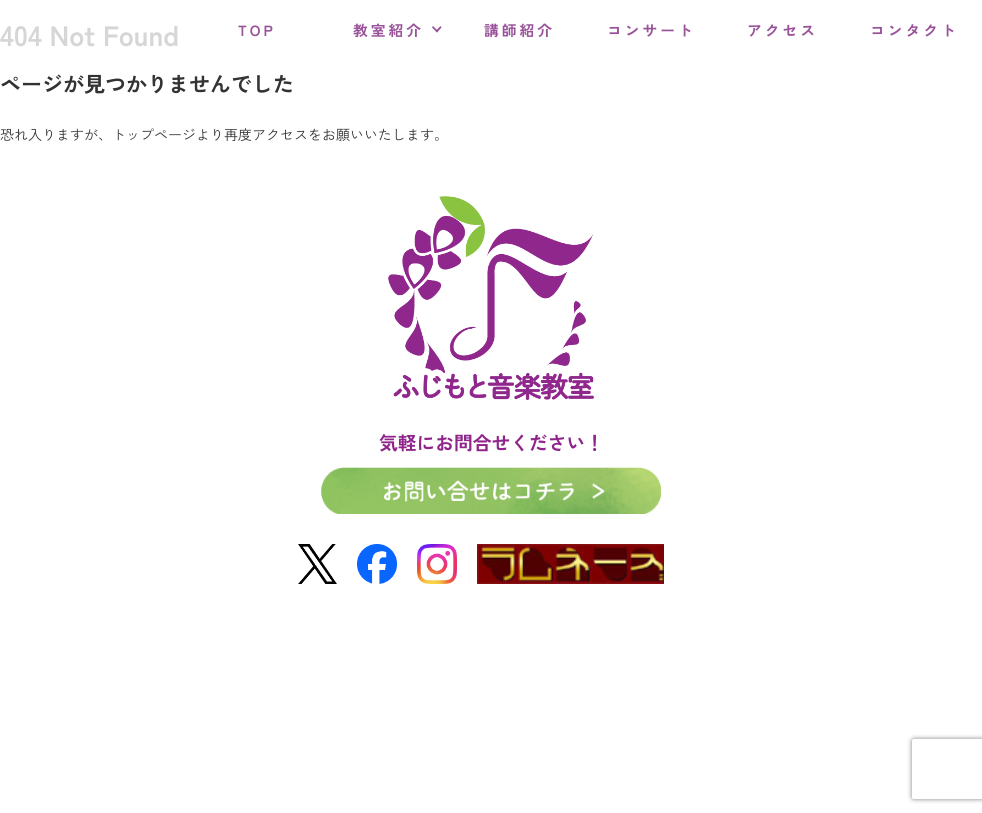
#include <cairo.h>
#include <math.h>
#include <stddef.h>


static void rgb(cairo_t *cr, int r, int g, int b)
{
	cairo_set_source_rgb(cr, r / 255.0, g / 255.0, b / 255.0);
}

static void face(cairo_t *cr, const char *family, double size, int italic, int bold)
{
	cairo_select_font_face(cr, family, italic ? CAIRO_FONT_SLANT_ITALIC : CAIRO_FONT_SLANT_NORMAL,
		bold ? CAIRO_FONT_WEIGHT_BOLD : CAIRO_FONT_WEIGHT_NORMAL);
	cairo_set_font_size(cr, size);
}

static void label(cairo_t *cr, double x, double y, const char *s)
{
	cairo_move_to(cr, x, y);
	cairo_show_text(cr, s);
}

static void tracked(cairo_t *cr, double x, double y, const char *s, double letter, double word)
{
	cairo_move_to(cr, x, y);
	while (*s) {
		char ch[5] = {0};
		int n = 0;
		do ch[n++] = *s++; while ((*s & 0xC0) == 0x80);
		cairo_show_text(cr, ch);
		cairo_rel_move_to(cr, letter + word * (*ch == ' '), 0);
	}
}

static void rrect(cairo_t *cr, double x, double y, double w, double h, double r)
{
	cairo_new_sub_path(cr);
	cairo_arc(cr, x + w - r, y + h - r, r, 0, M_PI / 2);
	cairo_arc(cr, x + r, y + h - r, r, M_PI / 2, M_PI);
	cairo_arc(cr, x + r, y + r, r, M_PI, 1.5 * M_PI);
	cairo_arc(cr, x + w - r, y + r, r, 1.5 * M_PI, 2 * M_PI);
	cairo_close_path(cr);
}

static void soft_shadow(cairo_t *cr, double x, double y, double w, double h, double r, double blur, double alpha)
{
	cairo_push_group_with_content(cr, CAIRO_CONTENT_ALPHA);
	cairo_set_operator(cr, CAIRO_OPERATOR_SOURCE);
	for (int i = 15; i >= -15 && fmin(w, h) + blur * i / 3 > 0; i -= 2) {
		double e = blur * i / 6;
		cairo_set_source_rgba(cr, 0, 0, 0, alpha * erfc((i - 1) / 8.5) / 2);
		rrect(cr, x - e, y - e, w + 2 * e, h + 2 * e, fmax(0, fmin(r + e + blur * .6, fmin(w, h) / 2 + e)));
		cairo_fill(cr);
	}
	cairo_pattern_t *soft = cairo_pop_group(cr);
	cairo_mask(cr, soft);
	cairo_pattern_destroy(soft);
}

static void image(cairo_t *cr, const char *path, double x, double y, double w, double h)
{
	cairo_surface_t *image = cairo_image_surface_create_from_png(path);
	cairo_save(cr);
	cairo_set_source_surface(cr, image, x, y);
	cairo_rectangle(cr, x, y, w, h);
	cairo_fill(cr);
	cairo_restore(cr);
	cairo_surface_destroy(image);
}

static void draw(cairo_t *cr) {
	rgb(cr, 255, 255, 255);
	cairo_paint(cr);
	face(cr, "Zen Kaku Gothic New", 28, 0, 1);
	rgb(cr, 214, 214, 214);
	label(cr, 0, 46, "404 Not Found");
	face(cr, "Zen Kaku Gothic New", 21, 0, 1);
	rgb(cr, 51, 51, 51);
	label(cr, 0, 92, "ページが見つかりませんでした");
	face(cr, "Zen Kaku Gothic New", 14, 0, 0);
	label(cr, 0, 140, "恐れ入りますが、トップページより再度アクセスをお願いいたします。");
	face(cr, "Zen Kaku Gothic New", 14.75, 0, 1);
	rgb(cr, 153, 82, 153);
	tracked(cr, 238, 36, "TOP", 3, 0);
	tracked(cr, 353, 36, "教室紹介", 3, 0);
	cairo_new_path(cr);
	cairo_move_to(cr, 441.5, 27.5);
	cairo_line_to(cr, 437, 32.5);
	cairo_line_to(cr, 435.5, 31);
	cairo_line_to(cr, 440.5, 26);
	cairo_close_path(cr);
	cairo_fill(cr);
	cairo_new_path(cr);
	cairo_move_to(cr, 438, 31);
	cairo_line_to(cr, 437, 32.5);
	cairo_line_to(cr, 432, 27.5);
	cairo_line_to(cr, 433, 26);
	cairo_close_path(cr);
	cairo_fill(cr);
	tracked(cr, 484, 36, "講師紹介", 3, 0);
	tracked(cr, 607, 36, "コンサート", 3, 0);
	tracked(cr, 747, 36, "アクセス", 3, 0);
	tracked(cr, 870, 36, "コンタクト", 3, 0);
	image(cr, "image0.png", 388, 196, 206, 205);
	face(cr, "Zen Kaku Gothic New", 18.75, 0, 1);
	rgb(cr, 143, 37, 139);
	label(cr, 379, 450, "気軽にお問合せください！");
	image(cr, "image1.png", 321, 467, 340, 47);
	image(cr, "image2.png", 298, 544, 39, 40);
	image(cr, "image3.png", 357, 544, 40, 40);
	image(cr, "image4.png", 417, 544, 40, 40);
	image(cr, "image5.png", 477, 544, 187, 40);
	cairo_save(cr);
	cairo_set_fill_rule(cr, CAIRO_FILL_RULE_EVEN_ODD);
	cairo_new_path(cr);
	cairo_move_to(cr, 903, 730);
	cairo_line_to(cr, 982, 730);
	cairo_line_to(cr, 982, 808);
	cairo_line_to(cr, 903, 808);
	cairo_close_path(cr);
	cairo_move_to(cr, 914, 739);
	cairo_line_to(cr, 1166, 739);
	cairo_curve_to(cr, 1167, 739, 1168, 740, 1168, 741);
	cairo_line_to(cr, 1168, 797);
	cairo_curve_to(cr, 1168, 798, 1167, 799, 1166, 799);
	cairo_line_to(cr, 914, 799);
	cairo_curve_to(cr, 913, 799, 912, 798, 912, 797);
	cairo_line_to(cr, 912, 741);
	cairo_curve_to(cr, 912, 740, 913, 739, 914, 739);
	cairo_close_path(cr);
	cairo_clip(cr);
	rgb(cr, 128, 128, 128);
	soft_shadow(cr, 912, 739, 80, 60, 2, 2.5, 1);
	cairo_restore(cr);
}

int main(void) {
	cairo_surface_t *surface = cairo_image_surface_create(CAIRO_FORMAT_RGB24, 982, 813);
	cairo_t *cr = cairo_create(surface);
	cairo_font_options_t *options = cairo_font_options_create();
	cairo_font_options_set_hint_metrics(options, CAIRO_HINT_METRICS_OFF);
	cairo_font_options_set_hint_style(options, CAIRO_HINT_STYLE_NONE);
	cairo_set_font_options(cr, options);
	cairo_set_miter_limit(cr, 4);
	draw(cr);
	cairo_surface_write_to_png(surface, "render.png");
	cairo_font_options_destroy(options);
	cairo_destroy(cr);
	cairo_surface_destroy(surface);
	return 0;
}
